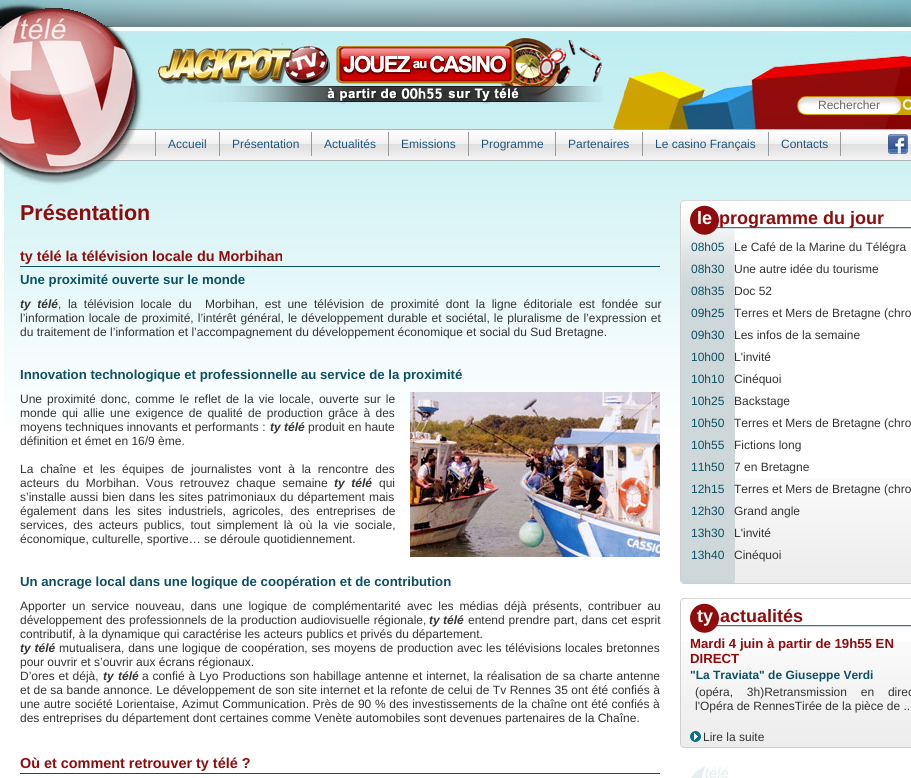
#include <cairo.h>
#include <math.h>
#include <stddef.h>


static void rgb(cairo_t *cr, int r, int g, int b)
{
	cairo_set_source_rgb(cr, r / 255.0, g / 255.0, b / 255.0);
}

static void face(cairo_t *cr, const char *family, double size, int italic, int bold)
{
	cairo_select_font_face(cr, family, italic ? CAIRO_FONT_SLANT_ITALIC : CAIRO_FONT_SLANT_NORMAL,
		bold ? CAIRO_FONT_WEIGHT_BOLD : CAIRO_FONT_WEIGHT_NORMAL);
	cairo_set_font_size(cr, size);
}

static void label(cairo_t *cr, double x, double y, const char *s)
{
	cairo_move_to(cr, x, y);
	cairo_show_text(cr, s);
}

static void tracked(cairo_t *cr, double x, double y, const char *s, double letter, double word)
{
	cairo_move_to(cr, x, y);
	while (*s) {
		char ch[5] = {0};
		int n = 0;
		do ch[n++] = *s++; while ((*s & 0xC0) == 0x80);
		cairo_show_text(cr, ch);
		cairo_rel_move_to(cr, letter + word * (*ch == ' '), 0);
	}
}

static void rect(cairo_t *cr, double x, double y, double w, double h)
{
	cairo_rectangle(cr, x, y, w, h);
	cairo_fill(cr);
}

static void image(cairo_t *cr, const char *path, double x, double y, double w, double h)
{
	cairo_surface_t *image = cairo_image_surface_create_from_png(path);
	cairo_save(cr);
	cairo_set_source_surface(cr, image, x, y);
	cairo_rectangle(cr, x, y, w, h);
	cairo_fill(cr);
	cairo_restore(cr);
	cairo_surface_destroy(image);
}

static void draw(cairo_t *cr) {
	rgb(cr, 255, 255, 255);
	cairo_paint(cr);
	image(cr, "image0.png", 0, 0, 911, 26);
	image(cr, "image1.png", 0, 26, 911, 400);
	image(cr, "image2.png", 0, 8, 136, 165);
	image(cr, "image3.png", 158, 38, 445, 66);
	image(cr, "image4.png", 796, 96, 115, 19);
	face(cr, "Liberation Sans", 12, 0, 0);
	rgb(cr, 102, 102, 102);
	label(cr, 818, 109, "Rechercher");
	image(cr, "image5.png", 888, 134, 20, 20);
	rgb(cr, 153, 153, 153);
	rect(cr, 840, 132, 1, 24);
	rect(cr, 155, 132, 1, 24);
	rgb(cr, 29, 87, 127);
	label(cr, 168, 148, "Accueil");
	rgb(cr, 153, 153, 153);
	rect(cr, 219, 132, 1, 24);
	rgb(cr, 29, 87, 127);
	label(cr, 232, 148, "Présentation");
	rgb(cr, 153, 153, 153);
	rect(cr, 311, 132, 1, 24);
	rgb(cr, 29, 87, 127);
	label(cr, 324, 148, "Actualités");
	rgb(cr, 153, 153, 153);
	rect(cr, 388, 132, 1, 24);
	rgb(cr, 29, 87, 127);
	label(cr, 401, 148, "Emissions");
	rgb(cr, 153, 153, 153);
	rect(cr, 468, 132, 1, 24);
	rgb(cr, 29, 87, 127);
	label(cr, 481, 148, "Programme");
	rgb(cr, 153, 153, 153);
	rect(cr, 555, 132, 1, 24);
	rgb(cr, 29, 87, 127);
	label(cr, 568, 148, "Partenaires");
	rgb(cr, 153, 153, 153);
	rect(cr, 642, 132, 1, 24);
	rgb(cr, 29, 87, 127);
	label(cr, 655, 148, "Le casino Français");
	rgb(cr, 153, 153, 153);
	rect(cr, 768, 132, 1, 24);
	rgb(cr, 29, 87, 127);
	label(cr, 781, 148, "Contacts");
	face(cr, "Liberation Sans", 21.5, 0, 1);
	rgb(cr, 144, 12, 12);
	label(cr, 20, 220, "Présentation");
	rgb(cr, 13, 81, 97);
	rect(cr, 20, 266, 640, 1);
	face(cr, "Liberation Sans", 14.4, 0, 1);
	rgb(cr, 144, 12, 12);
	label(cr, 20, 261, "ty télé la télévision locale du Morbihan");
	face(cr, "Liberation Sans", 13.2, 0, 1);
	rgb(cr, 13, 81, 97);
	label(cr, 20, 284, "Une proximité ouverte sur le monde");
	face(cr, "Liberation Sans", 12, 1, 1);
	rgb(cr, 51, 51, 51);
	tracked(cr, 20, 308, "ty télé", 0, 3.25);
	face(cr, "Liberation Sans", 12, 0, 0);
	tracked(cr, 58, 308, ", la télévision locale du  Morbihan, est une télévision de proximité dont la ligne éditoriale est fondée sur", 0, 3.25);
	tracked(cr, 20, 322, "l’information locale de proximité, l’intérêt général, le développement durable et sociétal, le pluralisme de l’expression et", 0, 0.75);
	label(cr, 20, 336, "du traitement de l’information et l’accompagnement du développement économique et social du Sud Bretagne.");
	face(cr, "Liberation Sans", 13.2, 0, 1);
	rgb(cr, 13, 81, 97);
	label(cr, 20, 379, "Innovation technologique et professionnelle au service de la proximité");
	face(cr, "Liberation Sans", 12, 0, 0);
	rgb(cr, 51, 51, 51);
	tracked(cr, 20, 403, "Une proximité donc, comme le reflet de la vie locale, ouverte sur le", 0, 1.75);
	image(cr, "image6.png", 410, 392, 250, 165);
	tracked(cr, 20, 417, "monde qui allie une exigence de qualité de production grâce à des", 0, 2);
	label(cr, 20, 431, "moyens techniques innovants et performants :");
	face(cr, "Liberation Sans", 12, 1, 1);
	label(cr, 270, 431, "ty télé");
	face(cr, "Liberation Sans", 12, 0, 0);
	label(cr, 308, 431, "produit en haute");
	label(cr, 20, 445, "définition et émet en 16/9 ème.");
	tracked(cr, 20, 473, "La chaîne et les équipes de journalistes vont à la rencontre des", 0, 3.5);
	tracked(cr, 20, 487, "acteurs du Morbihan. Vous retrouvez chaque semaine", 0, 3.25);
	face(cr, "Liberation Sans", 12, 1, 1);
	tracked(cr, 334, 487, "ty télé", 0, 3.25);
	face(cr, "Liberation Sans", 12, 0, 0);
	label(cr, 379, 487, "qui");
	tracked(cr, 20, 501, "s’installe aussi bien dans les sites patrimoniaux du département mais", 0, 0.75);
	tracked(cr, 20, 515, "également dans les sites industriels, agricoles, des entreprises de", 0, 3.25);
	tracked(cr, 20, 529, "services, des acteurs publics, tout simplement là où la vie sociale,", 0, 2.6);
	label(cr, 20, 543, "économique, culturelle, sportive… se déroule quotidiennement.");
	face(cr, "Liberation Sans", 13.2, 0, 1);
	rgb(cr, 13, 81, 97);
	label(cr, 20, 586, "Un ancrage local dans une logique de coopération et de contribution");
	face(cr, "Liberation Sans", 12, 0, 0);
	rgb(cr, 51, 51, 51);
	tracked(cr, 20, 610, "Apporter un service nouveau, dans une logique de complémentarité avec les médias déjà présents, contribuer au", 0, 2.6);
	tracked(cr, 20, 624, "développement des professionnels de la production audiovisuelle régionale,", 0, 0.5);
	face(cr, "Liberation Sans", 12, 1, 1);
	label(cr, 429, 624, "ty télé");
	face(cr, "Liberation Sans", 12, 0, 0);
	tracked(cr, 468, 624, "entend prendre part, dans cet esprit", 0, 0.5);
	label(cr, 20, 638, "contributif, à la dynamique qui caractérise les acteurs publics et privés du département.");
	face(cr, "Liberation Sans", 12, 1, 1);
	tracked(cr, 20, 652, "ty télé", 0, 0.5);
	face(cr, "Liberation Sans", 12, 0, 0);
	tracked(cr, 59, 652, "mutualisera, dans une logique de coopération, ses moyens de production avec les télévisions locales bretonnes", 0, 0.5);
	label(cr, 20, 666, "pour ouvrir et s’ouvrir aux écrans régionaux.");
	tracked(cr, 20, 680, "D’ores et déjà,", 0, 0.6);
	face(cr, "Liberation Sans", 12, 1, 1);
	tracked(cr, 103, 680, "ty télé", 0, 1);
	face(cr, "Liberation Sans", 12, 0, 0);
	tracked(cr, 142, 680, "a confié à Lyo Productions son habillage antenne et internet, la réalisation de sa charte antenne", 0, 0.6);
	tracked(cr, 20, 694, "et de sa bande annonce. Le développement de son site internet et la refonte de celui de Tv Rennes 35 ont été confiés à", 0, 0.15);
	tracked(cr, 20, 708, "une autre société Lorientaise, Azimut Communication. Près de 90 % des investissements de la chaîne ont été confiés à", 0, 0.3);
	label(cr, 20, 722, "des entreprises du département dont certaines comme Venète automobiles sont devenues partenaires de la Chaîne.");
	rgb(cr, 13, 81, 97);
	rect(cr, 20, 773, 640, 1);
	face(cr, "Liberation Sans", 14.4, 0, 1);
	rgb(cr, 144, 12, 12);
	label(cr, 20, 768, "Où et comment retrouver ty télé ?");
	image(cr, "image7.png", 680, 200, 231, 3);
	rgb(cr, 255, 255, 255);
	rect(cr, 735, 203, 176, 223);
	image(cr, "image8.png", 735, 478, 176, 102);
	rgb(cr, 207, 207, 207);
	rect(cr, 680, 203, 1, 377);
	rgb(cr, 206, 216, 219);
	rect(cr, 681, 295, 54, 285);
	image(cr, "image9.png", 681, 203, 54, 92);
	image(cr, "image10.png", 690, 205, 221, 30);
	face(cr, "Liberation Sans", 18, 0, 1);
	rgb(cr, 255, 255, 255);
	label(cr, 697, 224, "le");
	rgb(cr, 144, 12, 12);
	label(cr, 719, 224, "programme du jour");
	face(cr, "Liberation Sans", 12, 0, 0);
	rgb(cr, 13, 81, 97);
	label(cr, 691, 251, "08h05");
	rgb(cr, 51, 51, 51);
	label(cr, 734, 251, "Le Café de la Marine du Télégra");
	rgb(cr, 13, 81, 97);
	label(cr, 691, 273, "08h30");
	rgb(cr, 51, 51, 51);
	label(cr, 734, 273, "Une autre idée du tourisme");
	rgb(cr, 13, 81, 97);
	label(cr, 691, 295, "08h35");
	rgb(cr, 51, 51, 51);
	label(cr, 734, 295, "Doc 52");
	rgb(cr, 13, 81, 97);
	label(cr, 691, 317, "09h25");
	rgb(cr, 51, 51, 51);
	label(cr, 734, 317, "Terres et Mers de Bretagne (chro");
	rgb(cr, 13, 81, 97);
	label(cr, 691, 339, "09h30");
	rgb(cr, 51, 51, 51);
	label(cr, 734, 339, "Les infos de la semaine");
	rgb(cr, 13, 81, 97);
	label(cr, 691, 361, "10h00");
	rgb(cr, 51, 51, 51);
	label(cr, 734, 361, "L'invité");
	rgb(cr, 13, 81, 97);
	label(cr, 691, 383, "10h10");
	rgb(cr, 51, 51, 51);
	label(cr, 734, 383, "Cinéquoi");
	rgb(cr, 13, 81, 97);
	label(cr, 691, 405, "10h25");
	rgb(cr, 51, 51, 51);
	label(cr, 734, 405, "Backstage");
	rgb(cr, 13, 81, 97);
	label(cr, 691, 427, "10h50");
	rgb(cr, 51, 51, 51);
	label(cr, 734, 427, "Terres et Mers de Bretagne (chro");
	rgb(cr, 13, 81, 97);
	label(cr, 691, 449, "10h55");
	rgb(cr, 51, 51, 51);
	label(cr, 734, 449, "Fictions long");
	rgb(cr, 13, 81, 97);
	label(cr, 691, 471, "11h50");
	rgb(cr, 51, 51, 51);
	label(cr, 734, 471, "7 en Bretagne");
	rgb(cr, 13, 81, 97);
	label(cr, 691, 493, "12h15");
	rgb(cr, 51, 51, 51);
	label(cr, 734, 493, "Terres et Mers de Bretagne (chro");
	rgb(cr, 13, 81, 97);
	label(cr, 691, 515, "12h30");
	rgb(cr, 51, 51, 51);
	label(cr, 734, 515, "Grand angle");
	rgb(cr, 13, 81, 97);
	label(cr, 691, 537, "13h30");
	rgb(cr, 51, 51, 51);
	label(cr, 734, 537, "L'invité");
	rgb(cr, 13, 81, 97);
	label(cr, 691, 559, "13h40");
	rgb(cr, 51, 51, 51);
	label(cr, 734, 559, "Cinéquoi");
	image(cr, "image11.png", 680, 580, 231, 4);
	image(cr, "image12.png", 680, 598, 231, 3);
	image(cr, "image13.png", 681, 642, 230, 102);
	rgb(cr, 207, 207, 207);
	rect(cr, 680, 601, 1, 143);
	image(cr, "image14.png", 690, 603, 221, 30);
	face(cr, "Liberation Sans", 18, 0, 1);
	rgb(cr, 255, 255, 255);
	label(cr, 697, 622, "ty");
	rgb(cr, 144, 12, 12);
	label(cr, 720, 622, "actualités");
	face(cr, "Liberation Sans", 13.2, 0, 1);
	label(cr, 690, 648, "Mardi 4 juin à partir de 19h55 EN");
	label(cr, 690, 663, "DIRECT");
	face(cr, "Liberation Sans", 12, 0, 1);
	rgb(cr, 13, 81, 97);
	label(cr, 690, 679, "\"La Traviata\" de Giuseppe Verdi");
	face(cr, "Liberation Sans", 12, 0, 0);
	rgb(cr, 51, 51, 51);
	tracked(cr, 695, 696, "(opéra, 3h)Retransmission en direc", 0, 10.5);
	label(cr, 695, 710, "l'Opéra de RennesTirée de la pièce de ..");
	image(cr, "image15.png", 690, 731, 11, 11);
	label(cr, 703, 741, "Lire la suite");
	image(cr, "image16.png", 680, 744, 231, 4);
	image(cr, "image17.png", 691, 766, 37, 12);
}

int main(void) {
	cairo_surface_t *surface = cairo_image_surface_create(CAIRO_FORMAT_RGB24, 911, 778);
	cairo_t *cr = cairo_create(surface);
	cairo_font_options_t *options = cairo_font_options_create();
	cairo_font_options_set_hint_metrics(options, CAIRO_HINT_METRICS_OFF);
	cairo_font_options_set_hint_style(options, CAIRO_HINT_STYLE_NONE);
	cairo_set_font_options(cr, options);
	cairo_set_miter_limit(cr, 4);
	draw(cr);
	cairo_surface_write_to_png(surface, "render.png");
	cairo_font_options_destroy(options);
	cairo_destroy(cr);
	cairo_surface_destroy(surface);
	return 0;
}
